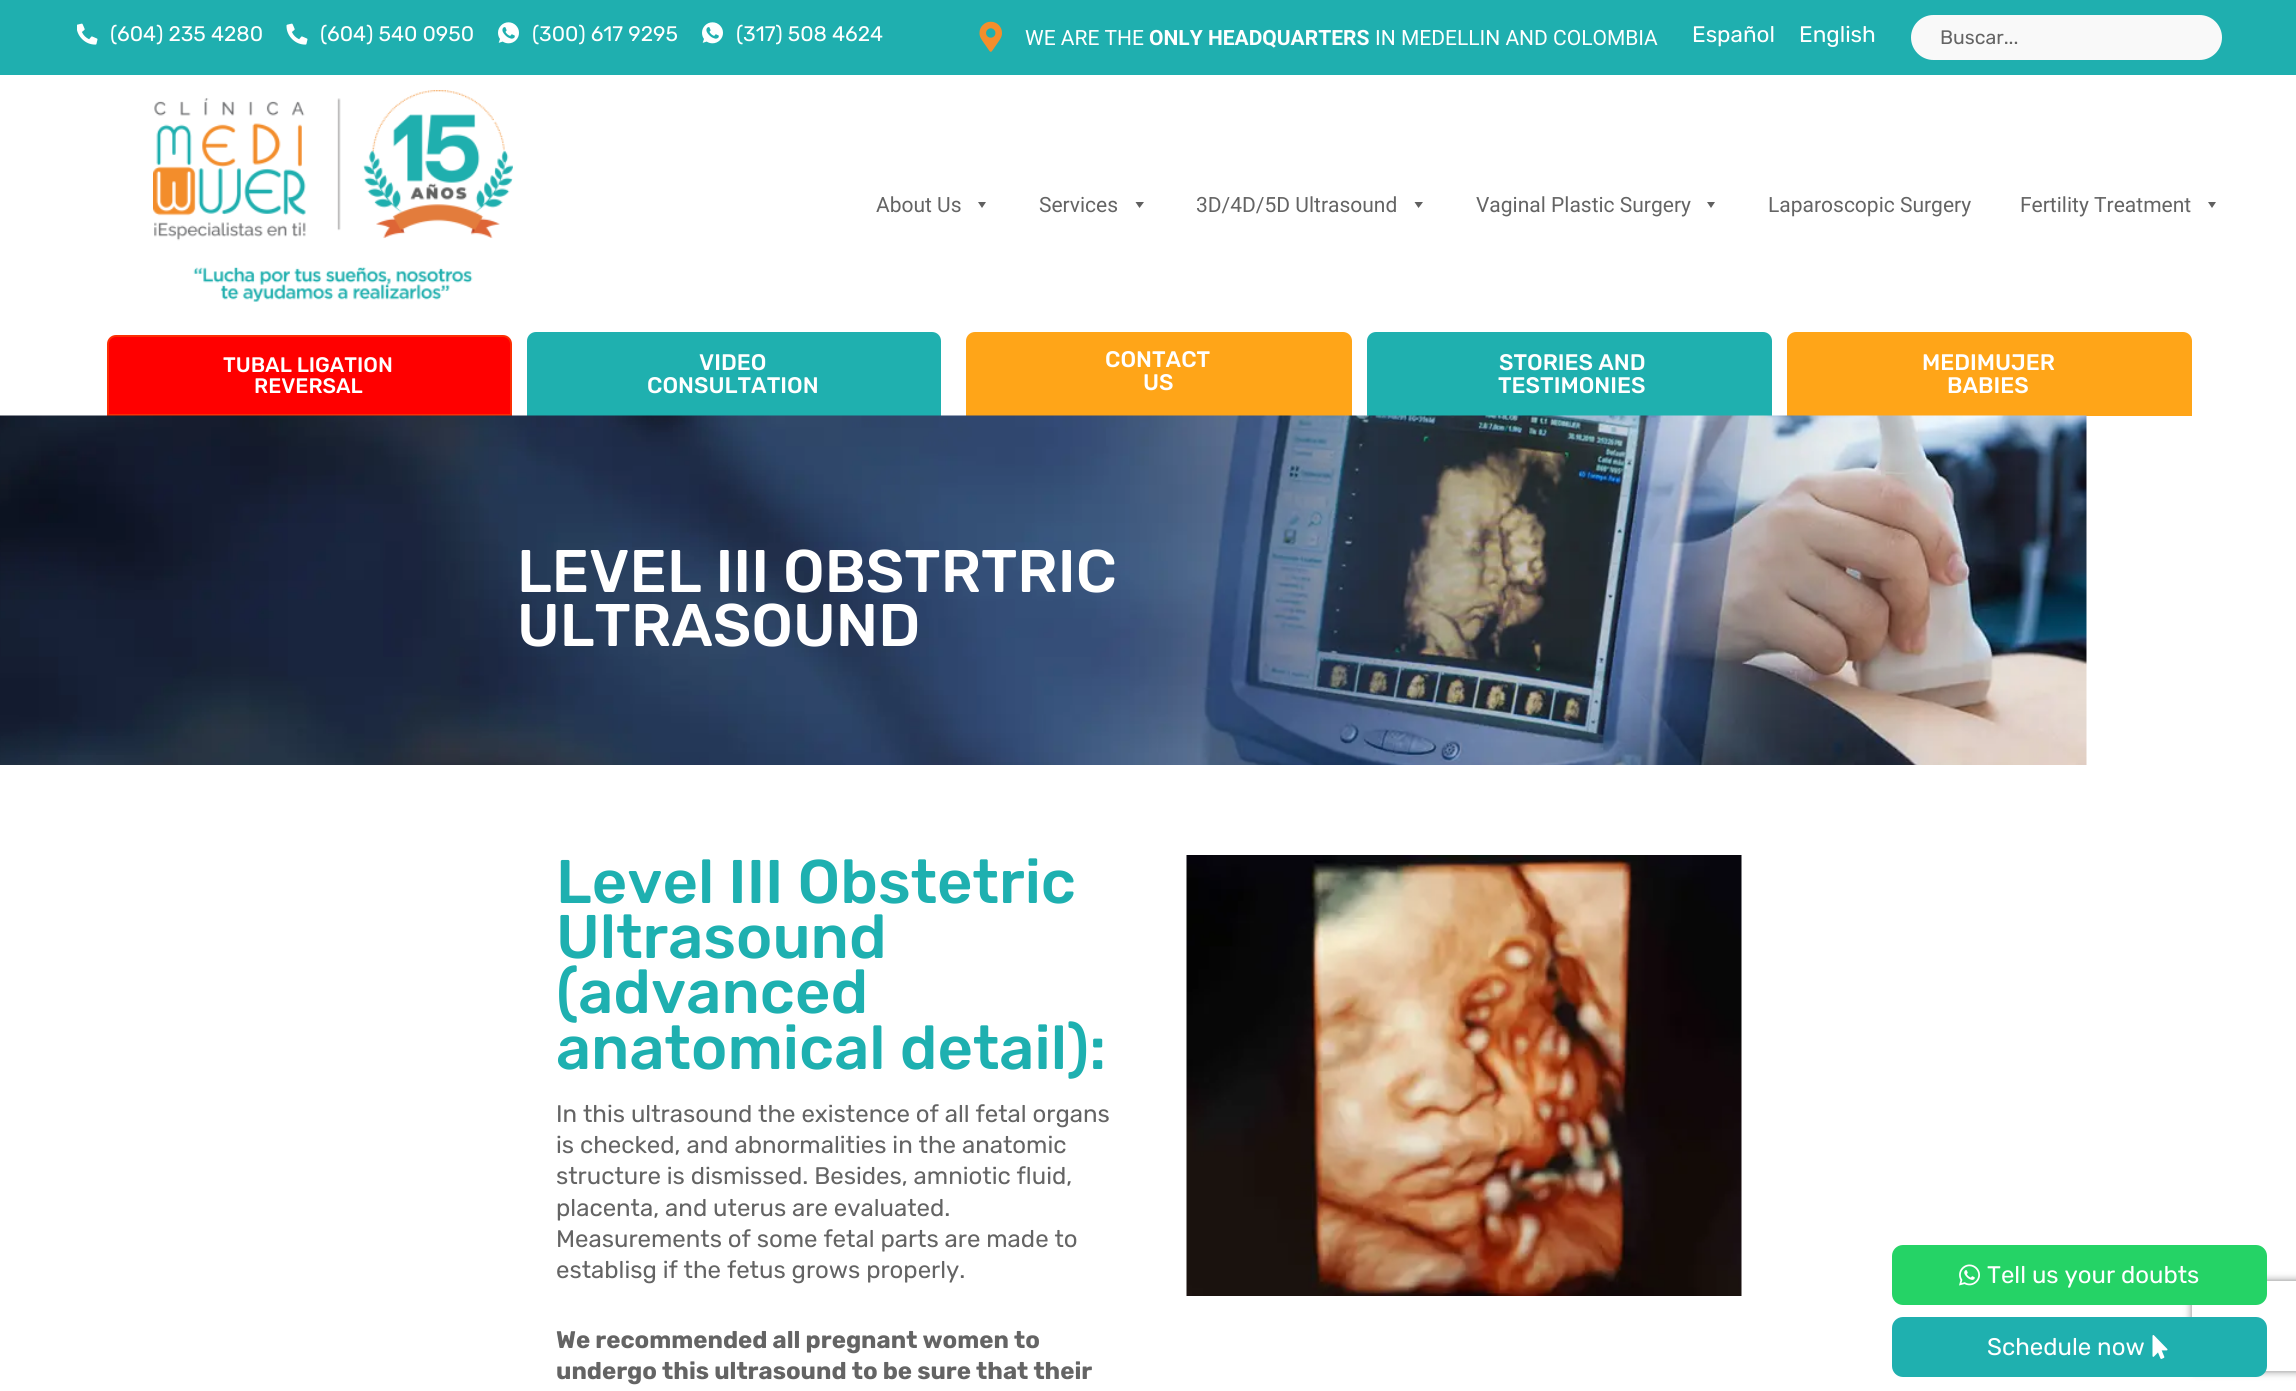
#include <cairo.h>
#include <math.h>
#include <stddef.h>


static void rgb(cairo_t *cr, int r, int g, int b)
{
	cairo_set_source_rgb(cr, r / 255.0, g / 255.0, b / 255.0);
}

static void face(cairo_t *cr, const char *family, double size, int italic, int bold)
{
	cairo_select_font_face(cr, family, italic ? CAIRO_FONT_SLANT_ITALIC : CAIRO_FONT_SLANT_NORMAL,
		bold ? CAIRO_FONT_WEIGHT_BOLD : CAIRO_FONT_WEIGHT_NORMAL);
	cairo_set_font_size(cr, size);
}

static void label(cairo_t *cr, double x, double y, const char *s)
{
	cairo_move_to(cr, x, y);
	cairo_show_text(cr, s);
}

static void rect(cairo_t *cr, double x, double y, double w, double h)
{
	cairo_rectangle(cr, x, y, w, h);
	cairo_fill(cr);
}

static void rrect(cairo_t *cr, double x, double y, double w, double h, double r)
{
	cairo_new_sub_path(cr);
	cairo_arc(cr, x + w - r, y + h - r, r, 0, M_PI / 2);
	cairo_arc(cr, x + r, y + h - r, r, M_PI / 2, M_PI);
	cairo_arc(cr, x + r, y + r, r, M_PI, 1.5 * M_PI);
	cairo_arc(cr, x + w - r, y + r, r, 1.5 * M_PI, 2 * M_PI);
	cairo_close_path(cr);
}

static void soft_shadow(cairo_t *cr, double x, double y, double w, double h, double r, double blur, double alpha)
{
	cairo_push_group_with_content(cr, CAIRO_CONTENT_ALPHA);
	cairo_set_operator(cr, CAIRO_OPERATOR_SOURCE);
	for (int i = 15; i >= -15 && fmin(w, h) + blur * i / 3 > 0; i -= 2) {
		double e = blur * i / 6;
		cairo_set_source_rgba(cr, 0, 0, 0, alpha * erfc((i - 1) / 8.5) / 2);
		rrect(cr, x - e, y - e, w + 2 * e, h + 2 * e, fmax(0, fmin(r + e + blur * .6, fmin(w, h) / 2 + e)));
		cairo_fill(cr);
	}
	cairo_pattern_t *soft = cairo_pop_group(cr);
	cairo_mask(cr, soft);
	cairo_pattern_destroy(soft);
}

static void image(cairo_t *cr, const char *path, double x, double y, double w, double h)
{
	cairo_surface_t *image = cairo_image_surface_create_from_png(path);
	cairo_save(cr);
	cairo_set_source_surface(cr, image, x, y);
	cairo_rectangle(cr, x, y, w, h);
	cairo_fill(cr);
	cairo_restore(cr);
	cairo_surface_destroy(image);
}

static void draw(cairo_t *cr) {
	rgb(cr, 255, 255, 255);
	cairo_paint(cr);
	rgb(cr, 31, 175, 175);
	rect(cr, 0, 0, 2296, 75);
	image(cr, "image0.png", 77, 23, 21, 22);
	face(cr, "Rubik", 21, 0, 0);
	rgb(cr, 255, 255, 255);
	label(cr, 110, 41, "(604) 235 4280");
	image(cr, "image1.png", 286, 23, 22, 22);
	label(cr, 320, 41, "(604) 540 0950");
	image(cr, "image2.png", 498, 22, 21, 22);
	label(cr, 532, 41, "(300) 617 9295");
	image(cr, "image2.png", 702, 22, 21, 22);
	label(cr, 736, 41, "(317) 508 4624");
	image(cr, "image3.png", 979, 21, 23, 31);
	face(cr, "Roboto", 21, 0, 0);
	label(cr, 1025, 45, "WE ARE THE");
	face(cr, "Roboto", 21, 0, 1);
	label(cr, 1149, 45, "ONLY HEADQUARTERS");
	face(cr, "Roboto", 21, 0, 0);
	label(cr, 1375, 45, "IN MEDELLIN AND COLOMBIA");
	face(cr, "Rubik", 22.5, 0, 0);
	label(cr, 1692, 42, "Español");
	label(cr, 1799, 42, "English");
	rgb(cr, 249, 249, 249);
	rrect(cr, 1911, 15, 311, 45, 22.5);
	cairo_fill(cr);
	face(cr, "Rubik", 19.5, 0, 0);
	rgb(cr, 100, 100, 100);
	label(cr, 1940, 44, "Buscar...");
	image(cr, "image4.png", 153, 90, 360, 212);
	face(cr, "Roboto", 21, 0, 0);
	label(cr, 876, 212, "About Us");
	rgb(cr, 96, 96, 96);
	cairo_new_path(cr);
	cairo_move_to(cr, 986, 202);
	cairo_line_to(cr, 982, 208);
	cairo_line_to(cr, 978, 202);
	cairo_close_path(cr);
	cairo_fill(cr);
	rgb(cr, 100, 100, 100);
	label(cr, 1039, 212, "Services");
	rgb(cr, 96, 96, 96);
	cairo_new_path(cr);
	cairo_move_to(cr, 1144, 202);
	cairo_line_to(cr, 1139.5, 208);
	cairo_line_to(cr, 1135.5, 202);
	cairo_close_path(cr);
	cairo_fill(cr);
	rgb(cr, 100, 100, 100);
	label(cr, 1196, 212, "3D/4D/5D Ultrasound");
	rgb(cr, 96, 96, 96);
	cairo_new_path(cr);
	cairo_move_to(cr, 1423, 202);
	cairo_line_to(cr, 1418.5, 208);
	cairo_line_to(cr, 1414.5, 202);
	cairo_close_path(cr);
	cairo_fill(cr);
	rgb(cr, 100, 100, 100);
	label(cr, 1476, 212, "Vaginal Plastic Surgery");
	rgb(cr, 96, 96, 96);
	cairo_new_path(cr);
	cairo_move_to(cr, 1715, 202);
	cairo_line_to(cr, 1711, 208);
	cairo_line_to(cr, 1707, 202);
	cairo_close_path(cr);
	cairo_fill(cr);
	rgb(cr, 100, 100, 100);
	label(cr, 1768, 212, "Laparoscopic Surgery");
	rgb(cr, 255, 255, 255);
	rect(cr, 1971, 200, 1, 2);
	rgb(cr, 100, 100, 100);
	label(cr, 2020, 212, "Fertility Treatment");
	rgb(cr, 96, 96, 96);
	cairo_new_path(cr);
	cairo_move_to(cr, 2216, 202);
	cairo_line_to(cr, 2212, 208);
	cairo_line_to(cr, 2208, 202);
	cairo_close_path(cr);
	cairo_fill(cr);
	rgb(cr, 255, 0, 0);
	cairo_new_path(cr);
	cairo_move_to(cr, 116, 336);
	cairo_line_to(cr, 503, 336);
	cairo_curve_to(cr, 507.5, 336, 511, 339.5, 511, 344);
	cairo_line_to(cr, 511, 415);
	cairo_line_to(cr, 108, 415);
	cairo_line_to(cr, 108, 344);
	cairo_curve_to(cr, 108, 339.5, 111.5, 336, 116, 336);
	cairo_close_path(cr);
	cairo_fill_preserve(cr);
	rgb(cr, 252, 46, 4);
	cairo_stroke(cr);
	face(cr, "Rubik Medium", 21, 0, 0);
	rgb(cr, 255, 255, 255);
	label(cr, 223, 372, "TUBAL LIGATION");
	label(cr, 254, 393, "REVERSAL");
	rgb(cr, 31, 176, 175);
	cairo_new_path(cr);
	cairo_move_to(cr, 536, 333);
	cairo_line_to(cr, 932, 333);
	cairo_curve_to(cr, 936.5, 333, 940, 336.5, 940, 341);
	cairo_line_to(cr, 940, 415);
	cairo_line_to(cr, 528, 415);
	cairo_line_to(cr, 528, 341);
	cairo_curve_to(cr, 528, 336.5, 531.5, 333, 536, 333);
	cairo_close_path(cr);
	cairo_fill_preserve(cr);
	cairo_stroke(cr);
	face(cr, "Rubik Medium", 22.5, 0, 0);
	rgb(cr, 255, 255, 255);
	label(cr, 699, 370, "VIDEO");
	label(cr, 647, 393, "CONSULTATION");
	rgb(cr, 255, 165, 24);
	cairo_new_path(cr);
	cairo_move_to(cr, 975, 333);
	cairo_line_to(cr, 1343, 333);
	cairo_curve_to(cr, 1347.5, 333, 1351, 336.5, 1351, 341);
	cairo_line_to(cr, 1351, 415);
	cairo_line_to(cr, 967, 415);
	cairo_line_to(cr, 967, 341);
	cairo_curve_to(cr, 967, 336.5, 970.5, 333, 975, 333);
	cairo_close_path(cr);
	cairo_fill_preserve(cr);
	cairo_stroke(cr);
	rgb(cr, 255, 255, 255);
	label(cr, 1105, 367, "CONTACT");
	label(cr, 1143, 390, "US");
	rgb(cr, 31, 176, 175);
	cairo_new_path(cr);
	cairo_move_to(cr, 1376, 333);
	cairo_line_to(cr, 1763, 333);
	cairo_curve_to(cr, 1767.5, 333, 1771, 336.5, 1771, 341);
	cairo_line_to(cr, 1771, 415);
	cairo_line_to(cr, 1368, 415);
	cairo_line_to(cr, 1368, 341);
	cairo_curve_to(cr, 1368, 336.5, 1371.5, 333, 1376, 333);
	cairo_close_path(cr);
	cairo_fill_preserve(cr);
	cairo_stroke(cr);
	rgb(cr, 255, 255, 255);
	label(cr, 1499, 370, "STORIES AND");
	label(cr, 1498, 393, "TESTIMONIES");
	rgb(cr, 255, 165, 24);
	cairo_new_path(cr);
	cairo_move_to(cr, 1796, 333);
	cairo_line_to(cr, 2183, 333);
	cairo_curve_to(cr, 2187.5, 333, 2191, 336.5, 2191, 341);
	cairo_line_to(cr, 2191, 415);
	cairo_line_to(cr, 1788, 415);
	cairo_line_to(cr, 1788, 341);
	cairo_curve_to(cr, 1788, 336.5, 1791.5, 333, 1796, 333);
	cairo_close_path(cr);
	cairo_fill_preserve(cr);
	cairo_stroke(cr);
	rgb(cr, 255, 255, 255);
	label(cr, 1922, 370, "MEDIMUJER");
	label(cr, 1947, 393, "BABIES");
	image(cr, "image5.png", 0, 415, 2087, 350);
	face(cr, "Rubik Medium", 60, 0, 0);
	label(cr, 517, 592, "LEVEL III OBSTRTRIC");
	label(cr, 517, 646, "ULTRASOUND");
	face(cr, "Rubik Medium", 61.5, 0, 0);
	rgb(cr, 30, 176, 176);
	label(cr, 556, 903, "Level III Obstetric");
	label(cr, 556, 958, "Ultrasound");
	label(cr, 556, 1013, "(advanced");
	label(cr, 556, 1069, "anatomical detail):");
	face(cr, "Rubik", 24, 0, 0);
	rgb(cr, 100, 100, 100);
	label(cr, 556, 1122, "In this ultrasound the existence of all fetal organs");
	label(cr, 556, 1153, "is checked, and abnormalities in the anatomic");
	label(cr, 556, 1184, "structure is dismissed. Besides, amniotic fluid,");
	label(cr, 556, 1216, "placenta, and uterus are evaluated.");
	label(cr, 556, 1247, "Measurements of some fetal parts are made to");
	label(cr, 556, 1278, "establisg if the fetus grows properly.");
	face(cr, "Rubik", 24, 0, 1);
	label(cr, 556, 1348, "We recommended all pregnant women to");
	label(cr, 556, 1379, "undergo this ultrasound to be sure that their");
	image(cr, "image6.png", 1186, 855, 556, 441);
	cairo_save(cr);
	cairo_set_fill_rule(cr, CAIRO_FILL_RULE_EVEN_ODD);
	cairo_new_path(cr);
	cairo_move_to(cr, 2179, 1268);
	cairo_line_to(cr, 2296, 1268);
	cairo_line_to(cr, 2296, 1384);
	cairo_line_to(cr, 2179, 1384);
	cairo_close_path(cr);
	cairo_move_to(cr, 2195, 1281);
	cairo_line_to(cr, 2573, 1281);
	cairo_curve_to(cr, 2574.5, 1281, 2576, 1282.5, 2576, 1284);
	cairo_line_to(cr, 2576, 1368);
	cairo_curve_to(cr, 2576, 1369.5, 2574.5, 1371, 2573, 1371);
	cairo_line_to(cr, 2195, 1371);
	cairo_curve_to(cr, 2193.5, 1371, 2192, 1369.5, 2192, 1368);
	cairo_line_to(cr, 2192, 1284);
	cairo_curve_to(cr, 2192, 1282.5, 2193.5, 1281, 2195, 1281);
	cairo_close_path(cr);
	cairo_clip(cr);
	rgb(cr, 128, 128, 128);
	soft_shadow(cr, 2192, 1281, 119, 90, 3, 4, 1);
	cairo_restore(cr);
	rgb(cr, 37, 211, 102);
	rrect(cr, 1893, 1246, 373, 58, 10);
	cairo_fill_preserve(cr);
	cairo_stroke(cr);
	image(cr, "image7.png", 1959, 1264, 21, 22);
	face(cr, "Rubik", 24, 0, 0);
	rgb(cr, 255, 255, 255);
	label(cr, 1987, 1283, "Tell us your doubts");
	rgb(cr, 31, 176, 175);
	rrect(cr, 1893, 1318, 373, 58, 10);
	cairo_fill_preserve(cr);
	cairo_stroke(cr);
	rgb(cr, 255, 255, 255);
	label(cr, 1987, 1355, "Schedule now");
	image(cr, "image8.png", 2152, 1335, 16, 24);
}

int main(void) {
	cairo_surface_t *surface = cairo_image_surface_create(CAIRO_FORMAT_RGB24, 2296, 1391);
	cairo_t *cr = cairo_create(surface);
	cairo_font_options_t *options = cairo_font_options_create();
	cairo_font_options_set_hint_metrics(options, CAIRO_HINT_METRICS_OFF);
	cairo_font_options_set_hint_style(options, CAIRO_HINT_STYLE_NONE);
	cairo_set_font_options(cr, options);
	cairo_set_miter_limit(cr, 4);
	draw(cr);
	cairo_surface_write_to_png(surface, "render.png");
	cairo_font_options_destroy(options);
	cairo_destroy(cr);
	cairo_surface_destroy(surface);
	return 0;
}
